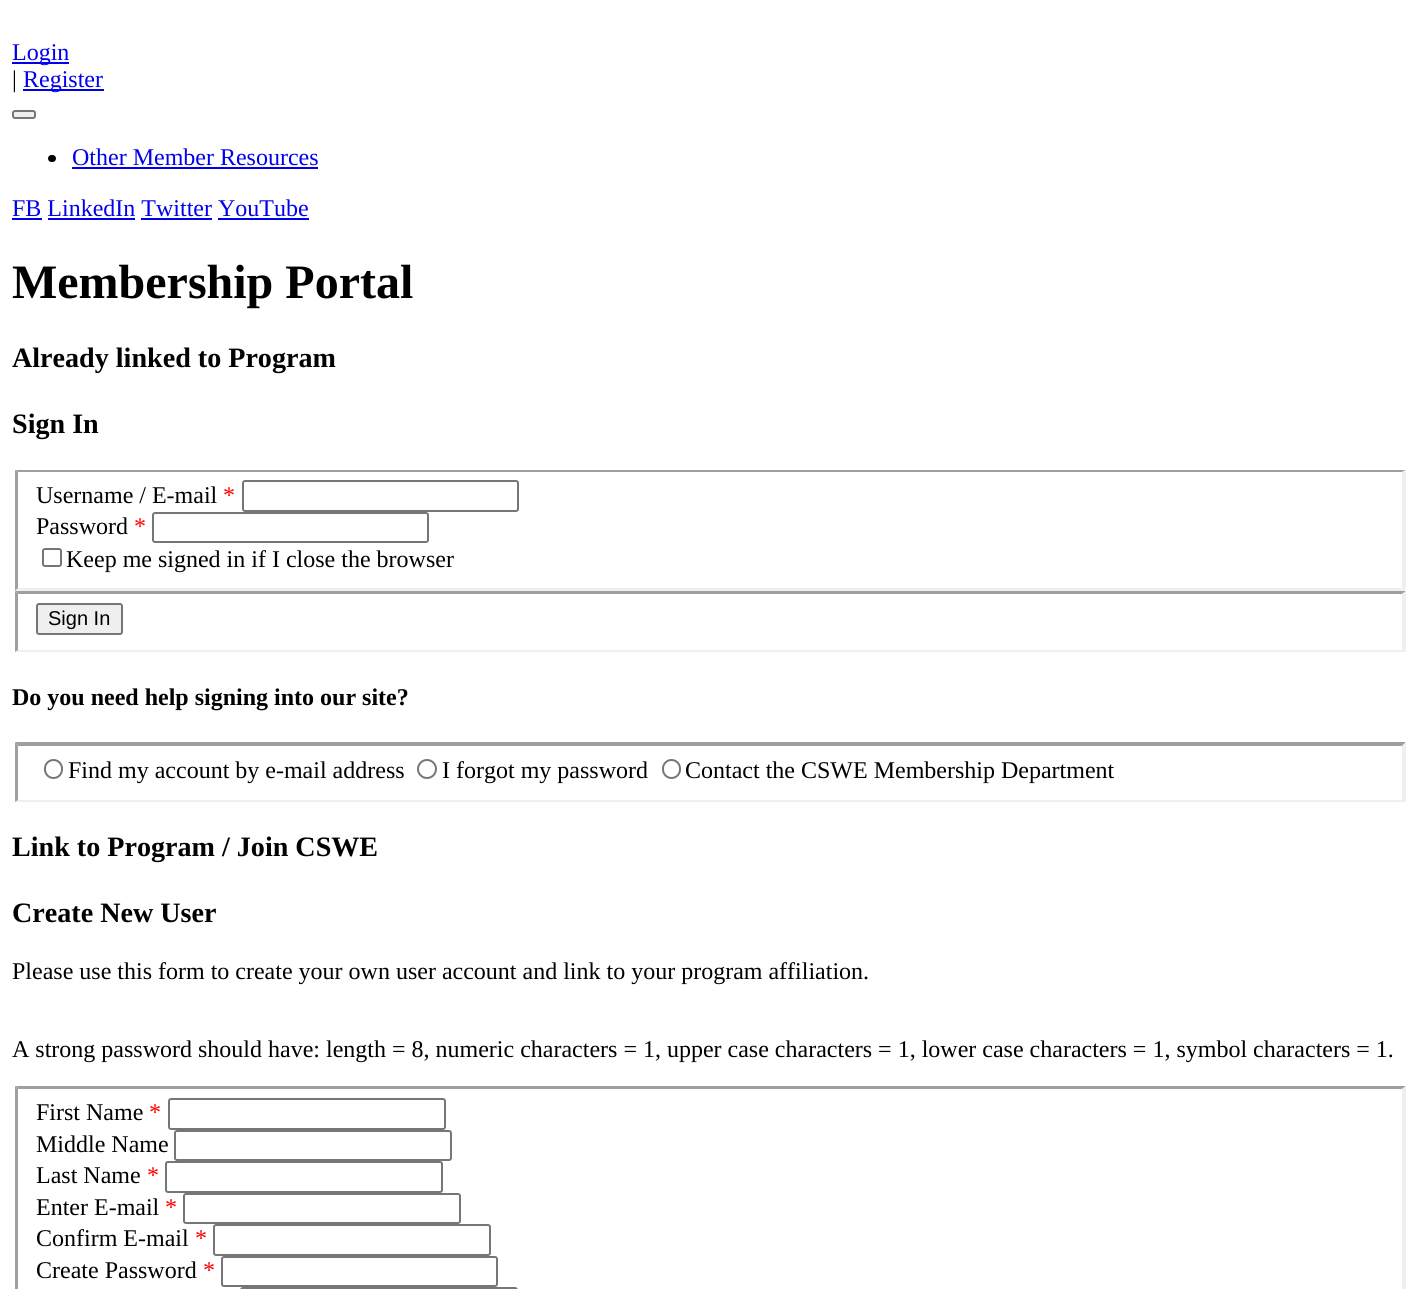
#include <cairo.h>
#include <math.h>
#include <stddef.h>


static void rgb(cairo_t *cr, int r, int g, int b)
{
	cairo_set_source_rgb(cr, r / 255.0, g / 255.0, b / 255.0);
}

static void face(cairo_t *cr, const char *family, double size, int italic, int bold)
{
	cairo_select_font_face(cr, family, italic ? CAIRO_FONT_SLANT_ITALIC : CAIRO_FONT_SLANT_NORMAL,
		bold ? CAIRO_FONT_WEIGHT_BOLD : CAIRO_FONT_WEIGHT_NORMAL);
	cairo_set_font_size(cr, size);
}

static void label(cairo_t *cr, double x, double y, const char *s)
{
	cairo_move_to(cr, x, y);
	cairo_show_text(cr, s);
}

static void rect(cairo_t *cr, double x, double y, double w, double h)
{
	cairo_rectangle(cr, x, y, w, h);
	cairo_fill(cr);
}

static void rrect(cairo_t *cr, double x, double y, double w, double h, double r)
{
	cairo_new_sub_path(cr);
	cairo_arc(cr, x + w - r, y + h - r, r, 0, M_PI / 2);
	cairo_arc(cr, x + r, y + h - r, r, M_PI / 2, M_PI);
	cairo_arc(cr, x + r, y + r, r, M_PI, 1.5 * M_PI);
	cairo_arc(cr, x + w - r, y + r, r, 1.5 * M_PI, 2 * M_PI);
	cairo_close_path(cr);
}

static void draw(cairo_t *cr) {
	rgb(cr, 255, 255, 255);
	cairo_paint(cr);
	rgb(cr, 0, 0, 238);
	rect(cr, 12, 62, 57, 2);
	face(cr, "Liberation Serif", 24, 0, 0);
	label(cr, 12, 60, "Login");
	rgb(cr, 0, 0, 0);
	label(cr, 12, 87, "|");
	rgb(cr, 0, 0, 238);
	rect(cr, 23, 89, 81, 2);
	label(cr, 23, 87, "Register");
	rgb(cr, 239, 239, 239);
	rrect(cr, 13, 111, 22, 7, 2);
	cairo_fill_preserve(cr);
	rgb(cr, 118, 118, 118);
	cairo_stroke(cr);
	rgb(cr, 0, 0, 0);
	rrect(cr, 48, 155, 8, 7, 3.5);
	cairo_fill(cr);
	rgb(cr, 0, 0, 238);
	label(cr, 72, 165, "Other Member Resources");
	rect(cr, 72, 167, 246, 2);
	label(cr, 12, 216, "FB LinkedIn Twitter YouTube");
	rect(cr, 12, 218, 30, 2);
	rect(cr, 48, 218, 87, 2);
	rect(cr, 141, 218, 71, 2);
	rect(cr, 218, 218, 91, 2);
	face(cr, "Liberation Serif", 48, 0, 1);
	rgb(cr, 0, 0, 0);
	label(cr, 12, 298, "Membership Portal");
	face(cr, "Liberation Serif", 28.1, 0, 1);
	label(cr, 12, 367, "Already linked to Program");
	label(cr, 12, 433, "Sign In");
	rgb(cr, 159, 159, 159);
	cairo_new_path(cr);
	cairo_move_to(cr, 15, 470);
	cairo_line_to(cr, 1406, 470);
	cairo_line_to(cr, 1402, 472);
	cairo_line_to(cr, 18, 472);
	cairo_close_path(cr);
	cairo_fill(cr);
	rgb(cr, 239, 239, 239);
	cairo_new_path(cr);
	cairo_move_to(cr, 1406, 470);
	cairo_line_to(cr, 1406, 591);
	cairo_line_to(cr, 1402, 588);
	cairo_line_to(cr, 1402, 472);
	cairo_close_path(cr);
	cairo_fill(cr);
	cairo_new_path(cr);
	cairo_move_to(cr, 1406, 591);
	cairo_line_to(cr, 15, 591);
	cairo_line_to(cr, 18, 588);
	cairo_line_to(cr, 1402, 588);
	cairo_close_path(cr);
	cairo_fill(cr);
	rgb(cr, 159, 159, 159);
	cairo_new_path(cr);
	cairo_move_to(cr, 15, 591);
	cairo_line_to(cr, 15, 470);
	cairo_line_to(cr, 18, 472);
	cairo_line_to(cr, 18, 588);
	cairo_close_path(cr);
	cairo_fill(cr);
	face(cr, "Liberation Serif", 24, 0, 0);
	rgb(cr, 0, 0, 0);
	label(cr, 36, 503, "Username / E-mail");
	rgb(cr, 255, 0, 0);
	label(cr, 223, 503, "*");
	rrect(cr, 243, 481, 275, 30, 2);
	rgb(cr, 118, 118, 118);
	cairo_stroke(cr);
	rgb(cr, 0, 0, 0);
	label(cr, 36, 534, "Password");
	rgb(cr, 255, 0, 0);
	label(cr, 134, 534, "*");
	rrect(cr, 153, 513, 275, 29, 2);
	rgb(cr, 118, 118, 118);
	cairo_stroke(cr);
	rrect(cr, 43, 549, 18, 17, 2);
	cairo_stroke(cr);
	rgb(cr, 0, 0, 0);
	label(cr, 66, 567, "Keep me signed in if I close the browser");
	rgb(cr, 159, 159, 159);
	cairo_new_path(cr);
	cairo_move_to(cr, 15, 591);
	cairo_line_to(cr, 1406, 591);
	cairo_line_to(cr, 1402, 594);
	cairo_line_to(cr, 18, 594);
	cairo_close_path(cr);
	cairo_fill(cr);
	rgb(cr, 239, 239, 239);
	cairo_new_path(cr);
	cairo_move_to(cr, 1406, 591);
	cairo_line_to(cr, 1406, 652);
	cairo_line_to(cr, 1402, 650);
	cairo_line_to(cr, 1402, 594);
	cairo_close_path(cr);
	cairo_fill(cr);
	cairo_new_path(cr);
	cairo_move_to(cr, 1406, 652);
	cairo_line_to(cr, 15, 652);
	cairo_line_to(cr, 18, 650);
	cairo_line_to(cr, 1402, 650);
	cairo_close_path(cr);
	cairo_fill(cr);
	rgb(cr, 159, 159, 159);
	cairo_new_path(cr);
	cairo_move_to(cr, 15, 652);
	cairo_line_to(cr, 15, 591);
	cairo_line_to(cr, 18, 594);
	cairo_line_to(cr, 18, 650);
	cairo_close_path(cr);
	cairo_fill(cr);
	rgb(cr, 239, 239, 239);
	rrect(cr, 37, 604, 85, 30, 2);
	cairo_fill_preserve(cr);
	rgb(cr, 118, 118, 118);
	cairo_stroke(cr);
	face(cr, "Liberation Sans", 20, 0, 0);
	rgb(cr, 0, 0, 0);
	label(cr, 48, 625, "Sign In");
	face(cr, "Liberation Serif", 24, 0, 1);
	label(cr, 12, 705, "Do you need help signing into our site?");
	rgb(cr, 159, 159, 159);
	cairo_new_path(cr);
	cairo_move_to(cr, 15, 742);
	cairo_line_to(cr, 1406, 742);
	cairo_line_to(cr, 1402, 746);
	cairo_line_to(cr, 18, 746);
	cairo_close_path(cr);
	cairo_fill(cr);
	rgb(cr, 239, 239, 239);
	cairo_new_path(cr);
	cairo_move_to(cr, 1406, 742);
	cairo_line_to(cr, 1406, 802);
	cairo_line_to(cr, 1402, 800);
	cairo_line_to(cr, 1402, 746);
	cairo_close_path(cr);
	cairo_fill(cr);
	cairo_new_path(cr);
	cairo_move_to(cr, 1406, 802);
	cairo_line_to(cr, 15, 802);
	cairo_line_to(cr, 18, 800);
	cairo_line_to(cr, 1402, 800);
	cairo_close_path(cr);
	cairo_fill(cr);
	rgb(cr, 159, 159, 159);
	cairo_new_path(cr);
	cairo_move_to(cr, 15, 802);
	cairo_line_to(cr, 15, 742);
	cairo_line_to(cr, 18, 746);
	cairo_line_to(cr, 18, 800);
	cairo_close_path(cr);
	cairo_fill(cr);
	rrect(cr, 45, 760, 17, 18, 8.5);
	rgb(cr, 118, 118, 118);
	cairo_stroke(cr);
	face(cr, "Liberation Serif", 24, 0, 0);
	rgb(cr, 0, 0, 0);
	label(cr, 68, 778, "Find my account by e-mail address");
	cairo_new_path(cr);
	cairo_arc(cr, 427, 769, 9, 0, 2 * M_PI);
	rgb(cr, 118, 118, 118);
	cairo_stroke(cr);
	rgb(cr, 0, 0, 0);
	label(cr, 442, 778, "I forgot my password");
	rrect(cr, 663, 760, 17, 18, 8.5);
	rgb(cr, 118, 118, 118);
	cairo_stroke(cr);
	rgb(cr, 0, 0, 0);
	label(cr, 685, 778, "Contact the CSWE Membership Department");
	face(cr, "Liberation Serif", 28.1, 0, 1);
	label(cr, 12, 856, "Link to Program / Join CSWE");
	label(cr, 12, 922, "Create New User");
	face(cr, "Liberation Serif", 24, 0, 0);
	label(cr, 12, 979, "Please use this form to create your own user account and link to your program affiliation.");
	label(cr, 12, 1057, "A strong password should have: length = 8, numeric characters = 1, upper case characters = 1, lower case characters = 1, symbol characters = 1.");
	rgb(cr, 159, 159, 159);
	cairo_new_path(cr);
	cairo_move_to(cr, 15, 1086);
	cairo_line_to(cr, 1406, 1086);
	cairo_line_to(cr, 1402, 1089);
	cairo_line_to(cr, 18, 1089);
	cairo_close_path(cr);
	cairo_fill(cr);
	rgb(cr, 239, 239, 239);
	cairo_new_path(cr);
	cairo_move_to(cr, 1406, 1086);
	cairo_line_to(cr, 1406, 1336);
	cairo_line_to(cr, 1402, 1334);
	cairo_line_to(cr, 1402, 1089);
	cairo_close_path(cr);
	cairo_fill(cr);
	rgb(cr, 159, 159, 159);
	cairo_new_path(cr);
	cairo_move_to(cr, 15, 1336);
	cairo_line_to(cr, 15, 1086);
	cairo_line_to(cr, 18, 1089);
	cairo_line_to(cr, 18, 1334);
	cairo_close_path(cr);
	cairo_fill(cr);
	rgb(cr, 0, 0, 0);
	label(cr, 36, 1120, "First Name");
	rgb(cr, 255, 0, 0);
	label(cr, 149, 1120, "*");
	rrect(cr, 169, 1099, 276, 30, 2);
	rgb(cr, 118, 118, 118);
	cairo_stroke(cr);
	rgb(cr, 0, 0, 0);
	label(cr, 36, 1152, "Middle Name");
	rrect(cr, 175, 1131, 276, 29, 2);
	rgb(cr, 118, 118, 118);
	cairo_stroke(cr);
	rgb(cr, 0, 0, 0);
	label(cr, 36, 1183, "Last Name");
	rgb(cr, 255, 0, 0);
	label(cr, 147, 1183, "*");
	rrect(cr, 166, 1162, 276, 30, 2);
	rgb(cr, 118, 118, 118);
	cairo_stroke(cr);
	rgb(cr, 0, 0, 0);
	label(cr, 36, 1215, "Enter E-mail");
	rgb(cr, 255, 0, 0);
	label(cr, 165, 1215, "*");
	rrect(cr, 184, 1194, 276, 29, 2);
	rgb(cr, 118, 118, 118);
	cairo_stroke(cr);
	rgb(cr, 0, 0, 0);
	label(cr, 36, 1246, "Confirm E-mail");
	rgb(cr, 255, 0, 0);
	label(cr, 195, 1246, "*");
	rrect(cr, 214, 1225, 276, 30, 2);
	rgb(cr, 118, 118, 118);
	cairo_stroke(cr);
	rgb(cr, 0, 0, 0);
	label(cr, 36, 1278, "Create Password");
	rgb(cr, 255, 0, 0);
	label(cr, 203, 1278, "*");
	rrect(cr, 222, 1257, 275, 29, 2);
	rgb(cr, 118, 118, 118);
	cairo_stroke(cr);
	rrect(cr, 241, 1288, 276, 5, 2);
	cairo_stroke(cr);
}

int main(void) {
	cairo_surface_t *surface = cairo_image_surface_create(CAIRO_FORMAT_RGB24, 1420, 1289);
	cairo_t *cr = cairo_create(surface);
	cairo_font_options_t *options = cairo_font_options_create();
	cairo_font_options_set_hint_metrics(options, CAIRO_HINT_METRICS_OFF);
	cairo_font_options_set_hint_style(options, CAIRO_HINT_STYLE_NONE);
	cairo_set_font_options(cr, options);
	cairo_set_miter_limit(cr, 4);
	draw(cr);
	cairo_surface_write_to_png(surface, "render.png");
	cairo_font_options_destroy(options);
	cairo_destroy(cr);
	cairo_surface_destroy(surface);
	return 0;
}
